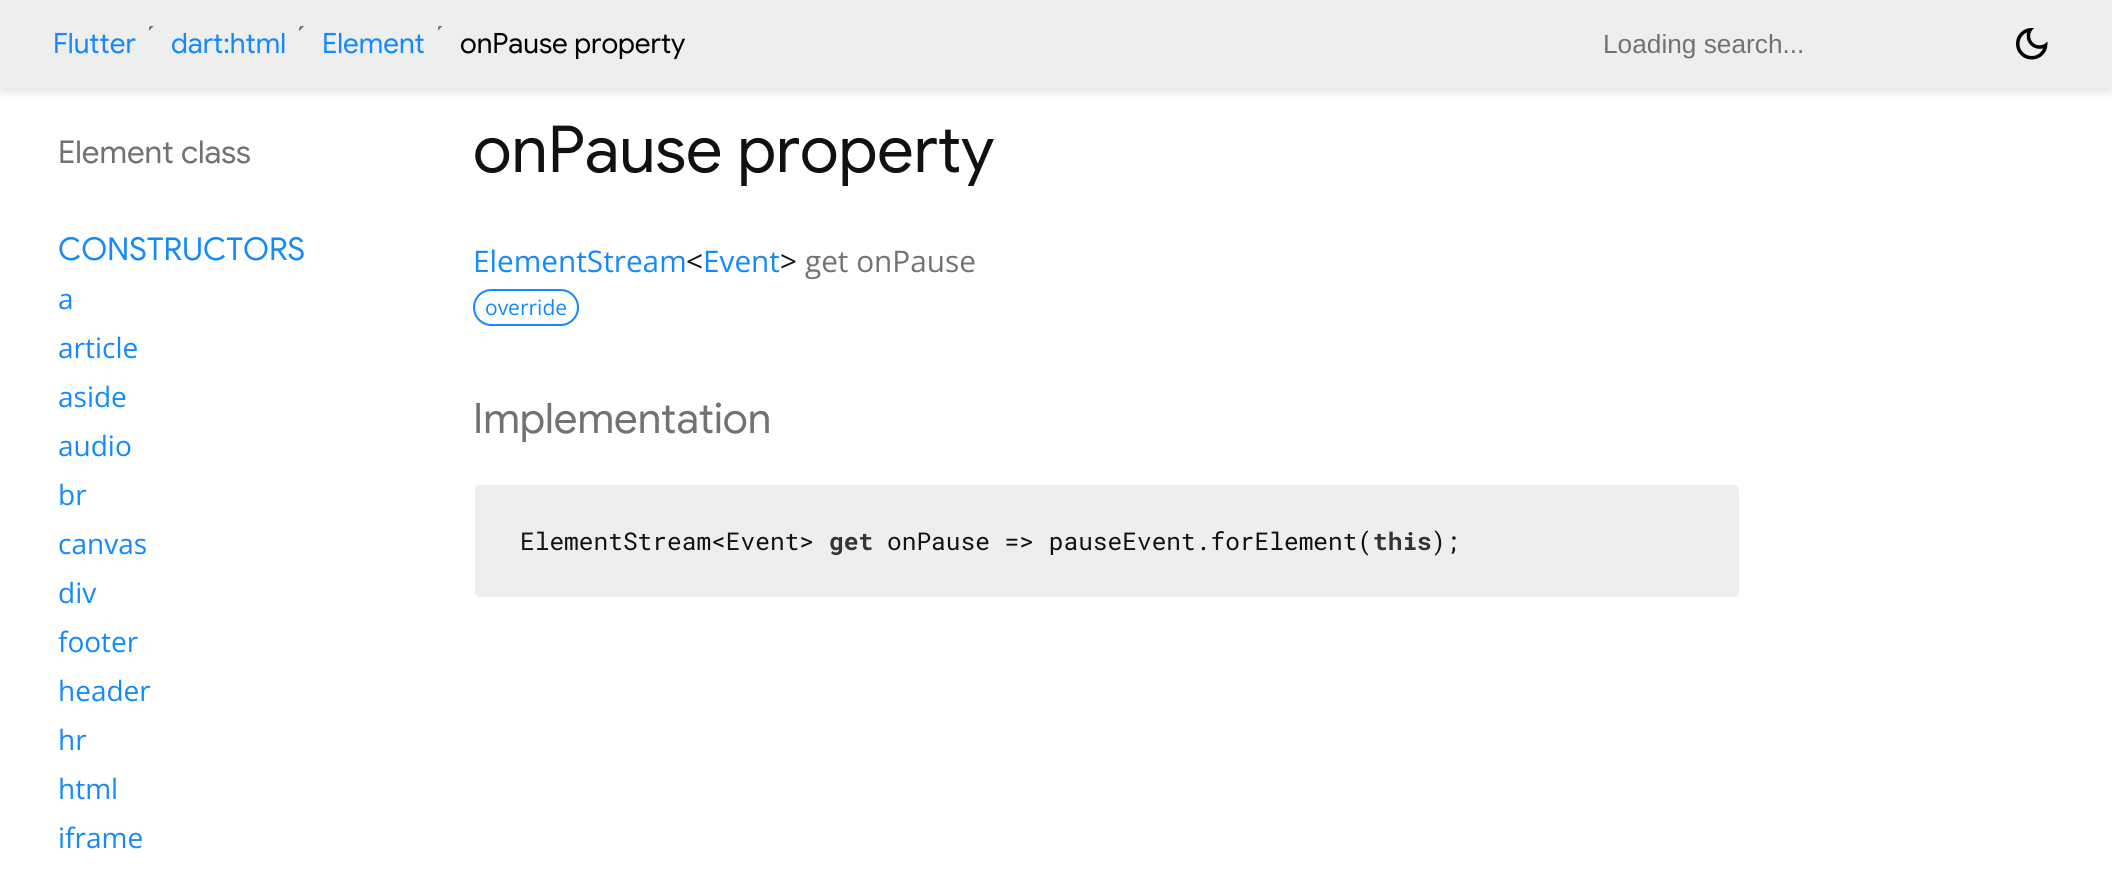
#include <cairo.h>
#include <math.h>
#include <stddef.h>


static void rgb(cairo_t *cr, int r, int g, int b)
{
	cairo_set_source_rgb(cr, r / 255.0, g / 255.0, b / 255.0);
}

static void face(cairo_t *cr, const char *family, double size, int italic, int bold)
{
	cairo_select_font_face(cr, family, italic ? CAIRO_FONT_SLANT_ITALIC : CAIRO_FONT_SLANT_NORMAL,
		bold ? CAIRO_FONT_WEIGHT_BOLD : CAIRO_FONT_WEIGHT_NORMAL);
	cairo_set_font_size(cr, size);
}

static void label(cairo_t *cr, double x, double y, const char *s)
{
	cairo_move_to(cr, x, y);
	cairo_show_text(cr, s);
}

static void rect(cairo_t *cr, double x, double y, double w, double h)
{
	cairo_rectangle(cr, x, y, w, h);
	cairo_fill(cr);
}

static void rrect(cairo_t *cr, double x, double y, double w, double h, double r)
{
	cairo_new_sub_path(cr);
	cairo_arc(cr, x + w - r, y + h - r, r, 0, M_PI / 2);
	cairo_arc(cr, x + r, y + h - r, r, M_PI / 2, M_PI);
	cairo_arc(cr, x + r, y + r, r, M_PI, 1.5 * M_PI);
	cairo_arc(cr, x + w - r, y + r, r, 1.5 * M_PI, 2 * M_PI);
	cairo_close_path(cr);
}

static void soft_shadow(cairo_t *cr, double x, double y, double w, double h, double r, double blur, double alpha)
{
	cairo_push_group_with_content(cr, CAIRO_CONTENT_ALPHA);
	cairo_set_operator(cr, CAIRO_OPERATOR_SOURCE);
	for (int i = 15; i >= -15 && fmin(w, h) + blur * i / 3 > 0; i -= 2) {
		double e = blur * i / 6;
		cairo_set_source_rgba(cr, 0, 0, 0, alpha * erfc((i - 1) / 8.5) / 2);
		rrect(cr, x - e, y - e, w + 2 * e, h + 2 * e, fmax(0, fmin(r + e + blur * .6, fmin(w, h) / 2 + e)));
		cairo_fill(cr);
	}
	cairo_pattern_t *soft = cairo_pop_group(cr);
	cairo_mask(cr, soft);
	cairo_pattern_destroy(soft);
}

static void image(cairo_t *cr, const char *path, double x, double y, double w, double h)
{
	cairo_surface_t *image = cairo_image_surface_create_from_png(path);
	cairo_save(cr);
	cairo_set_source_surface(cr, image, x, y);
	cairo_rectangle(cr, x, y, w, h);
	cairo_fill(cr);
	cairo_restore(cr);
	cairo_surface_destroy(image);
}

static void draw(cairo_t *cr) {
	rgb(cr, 255, 255, 255);
	cairo_paint(cr);
	rgb(cr, 0, 0, 0);
	soft_shadow(cr, 0, 5, 2112, 88, 0, 4.5, 0.1);
	rgb(cr, 238, 238, 238);
	rect(cr, 0, 0, 2112, 88);
	face(cr, "Google Sans", 28, 0, 0);
	rgb(cr, 19, 137, 253);
	label(cr, 53, 53, "Flutter");
	image(cr, "image0.png", 149, 26, 5, 5);
	label(cr, 171, 53, "dart:html");
	image(cr, "image1.png", 299, 26, 5, 5);
	label(cr, 322, 53, "Element");
	image(cr, "image2.png", 438, 26, 5, 5);
	rgb(cr, 0, 0, 0);
	label(cr, 460, 53, "onPause property");
	face(cr, "Liberation Sans", 26.25, 0, 0);
	rgb(cr, 114, 114, 114);
	label(cr, 1603, 53, "Loading search...");
	image(cr, "image3.png", 2016, 28, 32, 32);
	face(cr, "Google Sans", 31.5, 0, 0);
	label(cr, 58, 163, "Element class");
	rgb(cr, 19, 137, 253);
	label(cr, 58, 260, "CONSTRUCTORS");
	face(cr, "Open Sans", 28, 0, 0);
	label(cr, 58, 309, "a");
	label(cr, 58, 358, "article");
	label(cr, 58, 407, "aside");
	label(cr, 58, 456, "audio");
	label(cr, 58, 505, "br");
	label(cr, 58, 554, "canvas");
	label(cr, 58, 603, "div");
	label(cr, 58, 652, "footer");
	label(cr, 58, 701, "header");
	label(cr, 58, 750, "hr");
	label(cr, 58, 799, "html");
	label(cr, 58, 848, "iframe");
	face(cr, "Google Sans", 64.75, 0, 0);
	rgb(cr, 17, 17, 17);
	label(cr, 473, 172, "onPause property");
	face(cr, "Open Sans", 29.75, 0, 0);
	rgb(cr, 19, 137, 253);
	label(cr, 473, 272, "ElementStream");
	rgb(cr, 17, 17, 17);
	label(cr, 686, 272, "<");
	rgb(cr, 19, 137, 253);
	label(cr, 703, 272, "Event");
	rgb(cr, 17, 17, 17);
	label(cr, 780, 272, ">");
	rgb(cr, 114, 114, 114);
	label(cr, 805, 272, "get onPause");
	rrect(cr, 474, 290, 104, 35, 17.5);
	rgb(cr, 19, 137, 253);
	cairo_stroke(cr);
	face(cr, "Open Sans", 21, 0, 0);
	label(cr, 485, 315, "override");
	face(cr, "Google Sans", 42, 0, 0);
	rgb(cr, 114, 114, 114);
	label(cr, 473, 433, "Implementation");
	rgb(cr, 238, 238, 238);
	rrect(cr, 474, 484, 1266, 114, 6);
	cairo_fill_preserve(cr);
	rgb(cr, 255, 255, 255);
	cairo_stroke(cr);
	face(cr, "Roboto Mono", 24.5, 0, 0);
	rgb(cr, 17, 17, 17);
	label(cr, 520, 550, "ElementStream<Event>");
	face(cr, "Roboto Mono", 24.5, 0, 1);
	rgb(cr, 51, 51, 51);
	label(cr, 829, 550, "get");
	face(cr, "Roboto Mono", 24.5, 0, 0);
	rgb(cr, 17, 17, 17);
	label(cr, 887, 550, "onPause => pauseEvent.forElement(");
	face(cr, "Roboto Mono", 24.5, 0, 1);
	rgb(cr, 51, 51, 51);
	label(cr, 1373, 550, "this");
	face(cr, "Roboto Mono", 24.5, 0, 0);
	rgb(cr, 17, 17, 17);
	label(cr, 1431, 550, ");");
}

int main(void) {
	cairo_surface_t *surface = cairo_image_surface_create(CAIRO_FORMAT_RGB24, 2112, 891);
	cairo_t *cr = cairo_create(surface);
	cairo_font_options_t *options = cairo_font_options_create();
	cairo_font_options_set_hint_metrics(options, CAIRO_HINT_METRICS_OFF);
	cairo_font_options_set_hint_style(options, CAIRO_HINT_STYLE_NONE);
	cairo_set_font_options(cr, options);
	cairo_set_miter_limit(cr, 4);
	draw(cr);
	cairo_surface_write_to_png(surface, "render.png");
	cairo_font_options_destroy(options);
	cairo_destroy(cr);
	cairo_surface_destroy(surface);
	return 0;
}
